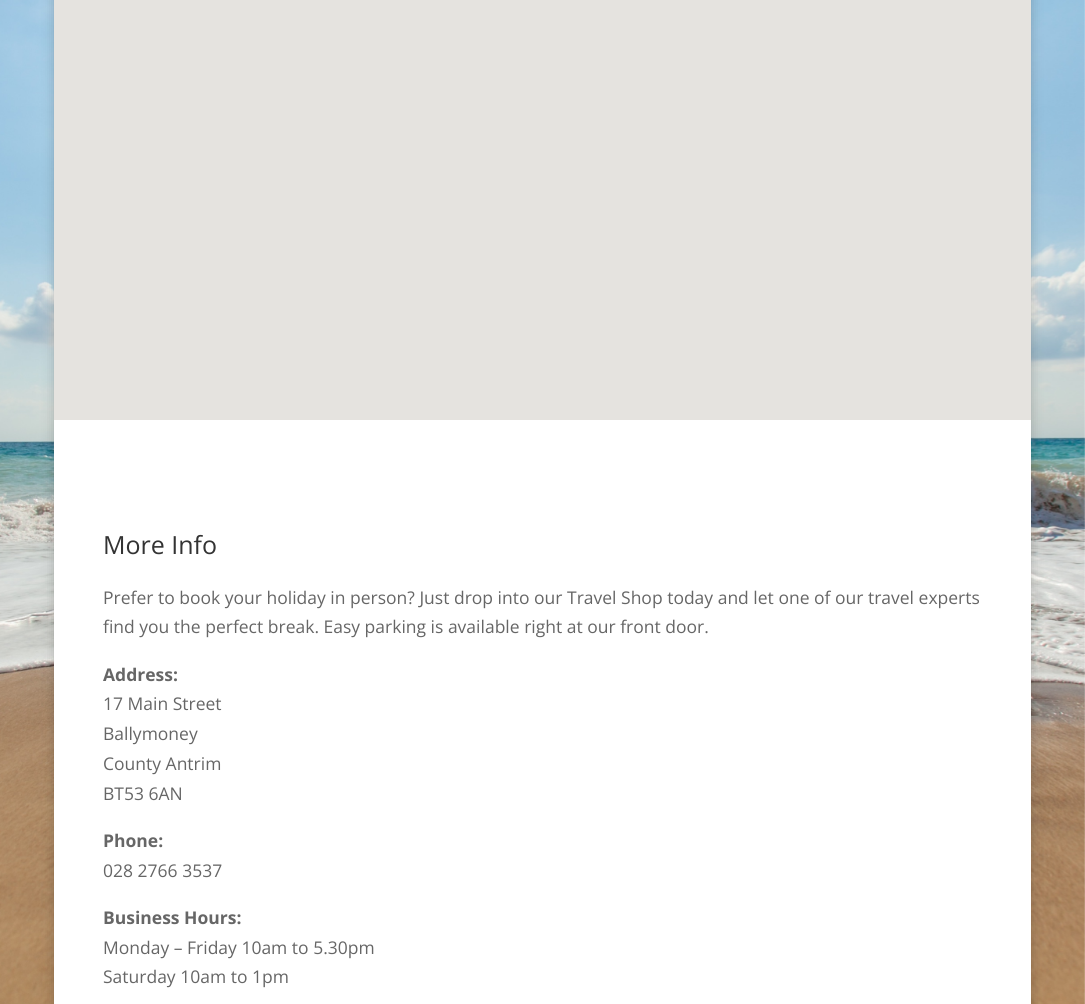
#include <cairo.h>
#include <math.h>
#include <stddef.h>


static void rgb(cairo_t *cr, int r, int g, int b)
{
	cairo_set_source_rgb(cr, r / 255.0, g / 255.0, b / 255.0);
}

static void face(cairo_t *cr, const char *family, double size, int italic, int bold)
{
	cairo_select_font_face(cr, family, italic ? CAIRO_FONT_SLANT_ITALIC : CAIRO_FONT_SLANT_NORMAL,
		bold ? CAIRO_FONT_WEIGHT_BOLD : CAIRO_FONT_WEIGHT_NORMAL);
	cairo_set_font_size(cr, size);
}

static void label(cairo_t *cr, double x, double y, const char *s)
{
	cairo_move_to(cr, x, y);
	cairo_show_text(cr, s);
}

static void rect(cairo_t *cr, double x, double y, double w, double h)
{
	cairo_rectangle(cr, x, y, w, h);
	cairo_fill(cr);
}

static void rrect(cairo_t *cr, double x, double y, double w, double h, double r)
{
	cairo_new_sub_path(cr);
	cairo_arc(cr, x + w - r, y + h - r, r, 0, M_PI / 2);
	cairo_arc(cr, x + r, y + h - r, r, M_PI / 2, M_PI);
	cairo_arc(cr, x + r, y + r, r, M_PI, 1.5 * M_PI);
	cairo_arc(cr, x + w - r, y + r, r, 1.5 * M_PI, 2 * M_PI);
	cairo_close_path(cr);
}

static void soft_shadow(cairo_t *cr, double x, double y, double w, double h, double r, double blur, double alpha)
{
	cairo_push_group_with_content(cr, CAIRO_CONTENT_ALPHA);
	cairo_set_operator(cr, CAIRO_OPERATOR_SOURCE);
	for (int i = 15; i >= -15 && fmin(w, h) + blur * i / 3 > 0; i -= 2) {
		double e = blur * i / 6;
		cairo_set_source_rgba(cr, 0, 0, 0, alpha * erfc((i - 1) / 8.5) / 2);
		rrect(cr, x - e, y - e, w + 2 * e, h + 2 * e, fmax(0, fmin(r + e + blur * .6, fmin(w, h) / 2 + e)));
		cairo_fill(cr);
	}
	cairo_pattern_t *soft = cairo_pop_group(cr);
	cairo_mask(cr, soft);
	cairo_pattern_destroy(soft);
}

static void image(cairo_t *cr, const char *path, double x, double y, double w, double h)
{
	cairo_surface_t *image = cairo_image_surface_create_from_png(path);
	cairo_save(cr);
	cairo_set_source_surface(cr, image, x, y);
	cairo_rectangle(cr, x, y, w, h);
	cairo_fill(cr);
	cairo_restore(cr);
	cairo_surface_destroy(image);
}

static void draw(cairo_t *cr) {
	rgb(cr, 255, 255, 255);
	cairo_paint(cr);
	image(cr, "image0.png", 0, 0, 1085, 1004);
	rgb(cr, 0, 0, 0);
	soft_shadow(cr, 54, -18, 977, 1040, 0, 6, 0.2);
	rgb(cr, 229, 227, 223);
	rect(cr, 54, 0, 977, 420);
	rgb(cr, 255, 255, 255);
	rect(cr, 54, 420, 977, 584);
	face(cr, "Open Sans", 25, 0, 0);
	rgb(cr, 51, 51, 51);
	label(cr, 103, 554, "More Info");
	face(cr, "Open Sans", 17.5, 0, 0);
	rgb(cr, 102, 102, 102);
	label(cr, 103, 604, "Prefer to book your holiday in person? Just drop into our Travel Shop today and let one of our travel experts");
	label(cr, 103, 633, "find you the perfect break. Easy parking is available right at our front door.");
	face(cr, "Open Sans", 17.5, 0, 1);
	label(cr, 103, 681, "Address:");
	face(cr, "Open Sans", 17.5, 0, 0);
	label(cr, 103, 710, "17 Main Street");
	label(cr, 103, 740, "Ballymoney");
	label(cr, 103, 770, "County Antrim");
	label(cr, 103, 800, "BT53 6AN");
	face(cr, "Open Sans", 17.5, 0, 1);
	label(cr, 103, 847, "Phone:");
	face(cr, "Open Sans", 17.5, 0, 0);
	label(cr, 103, 877, "028 2766 3537");
	face(cr, "Open Sans", 17.5, 0, 1);
	label(cr, 103, 924, "Business Hours:");
	face(cr, "Open Sans", 17.5, 0, 0);
	label(cr, 103, 954, "Monday – Friday 10am to 5.30pm");
	label(cr, 103, 983, "Saturday 10am to 1pm");
}

int main(void) {
	cairo_surface_t *surface = cairo_image_surface_create(CAIRO_FORMAT_RGB24, 1085, 1004);
	cairo_t *cr = cairo_create(surface);
	cairo_font_options_t *options = cairo_font_options_create();
	cairo_font_options_set_hint_metrics(options, CAIRO_HINT_METRICS_OFF);
	cairo_font_options_set_hint_style(options, CAIRO_HINT_STYLE_NONE);
	cairo_set_font_options(cr, options);
	cairo_set_miter_limit(cr, 4);
	draw(cr);
	cairo_surface_write_to_png(surface, "render.png");
	cairo_font_options_destroy(options);
	cairo_destroy(cr);
	cairo_surface_destroy(surface);
	return 0;
}
